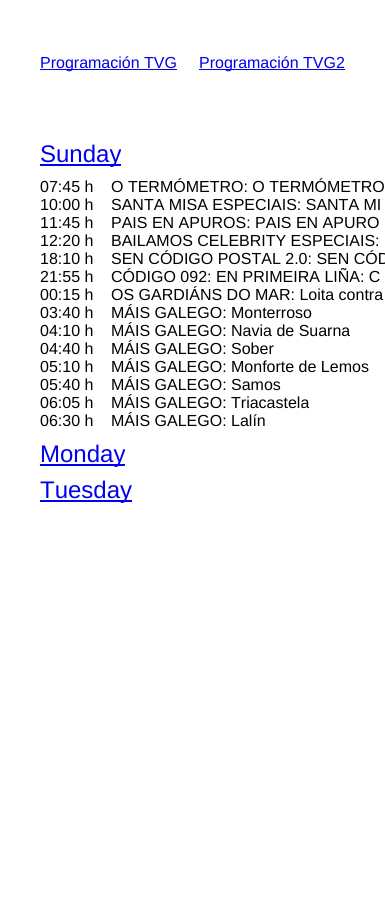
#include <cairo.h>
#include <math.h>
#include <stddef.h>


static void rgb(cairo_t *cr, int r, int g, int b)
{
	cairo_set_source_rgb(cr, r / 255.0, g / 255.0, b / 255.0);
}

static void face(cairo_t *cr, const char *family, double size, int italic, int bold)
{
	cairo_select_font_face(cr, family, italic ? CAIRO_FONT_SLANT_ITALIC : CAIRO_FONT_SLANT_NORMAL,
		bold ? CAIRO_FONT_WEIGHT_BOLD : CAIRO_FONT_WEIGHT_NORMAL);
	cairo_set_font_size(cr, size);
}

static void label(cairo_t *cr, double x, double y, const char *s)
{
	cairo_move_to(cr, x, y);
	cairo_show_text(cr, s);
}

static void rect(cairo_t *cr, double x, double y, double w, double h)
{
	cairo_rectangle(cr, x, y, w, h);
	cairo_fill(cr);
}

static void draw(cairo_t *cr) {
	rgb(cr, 255, 255, 255);
	cairo_paint(cr);
	rgb(cr, 0, 0, 238);
	rect(cr, 40, 69, 137, 1);
	face(cr, "Liberation Sans", 16, 0, 0);
	label(cr, 40, 68, "Programación TVG");
	rect(cr, 199, 69, 146, 1);
	label(cr, 199, 68, "Programación TVG2");
	rect(cr, 40, 164, 81, 2);
	face(cr, "Liberation Sans", 24, 0, 0);
	label(cr, 40, 162, "Sunday");
	face(cr, "Liberation Sans", 16, 0, 0);
	rgb(cr, 0, 0, 0);
	label(cr, 40, 192, "07:45 h");
	label(cr, 111, 192, "O TERMÓMETRO: O TERMÓMETRO");
	label(cr, 40, 210, "10:00 h");
	label(cr, 111, 210, "SANTA MISA ESPECIAIS: SANTA MI");
	label(cr, 40, 228, "11:45 h");
	label(cr, 111, 228, "PAIS EN APUROS: PAIS EN APURO");
	label(cr, 40, 246, "12:20 h");
	label(cr, 111, 246, "BAILAMOS CELEBRITY ESPECIAIS:");
	label(cr, 40, 264, "18:10 h");
	label(cr, 111, 264, "SEN CÓDIGO POSTAL 2.0: SEN CÓD");
	label(cr, 40, 282, "21:55 h");
	label(cr, 111, 282, "CÓDIGO 092: EN PRIMEIRA LIÑA: C");
	label(cr, 40, 300, "00:15 h");
	label(cr, 111, 300, "OS GARDIÁNS DO MAR: Loita contra");
	label(cr, 40, 318, "03:40 h");
	label(cr, 111, 318, "MÁIS GALEGO: Monterroso");
	label(cr, 40, 336, "04:10 h");
	label(cr, 111, 336, "MÁIS GALEGO: Navia de Suarna");
	label(cr, 40, 354, "04:40 h");
	label(cr, 111, 354, "MÁIS GALEGO: Sober");
	label(cr, 40, 372, "05:10 h");
	label(cr, 111, 372, "MÁIS GALEGO: Monforte de Lemos");
	label(cr, 40, 390, "05:40 h");
	label(cr, 111, 390, "MÁIS GALEGO: Samos");
	label(cr, 40, 408, "06:05 h");
	label(cr, 111, 408, "MÁIS GALEGO: Triacastela");
	label(cr, 40, 426, "06:30 h");
	label(cr, 111, 426, "MÁIS GALEGO: Lalín");
	rgb(cr, 0, 0, 238);
	rect(cr, 40, 464, 85, 2);
	face(cr, "Liberation Sans", 24, 0, 0);
	label(cr, 40, 462, "Monday");
	rect(cr, 40, 500, 92, 2);
	label(cr, 40, 498, "Tuesday");
}

int main(void) {
	cairo_surface_t *surface = cairo_image_surface_create(CAIRO_FORMAT_RGB24, 385, 900);
	cairo_t *cr = cairo_create(surface);
	cairo_font_options_t *options = cairo_font_options_create();
	cairo_font_options_set_hint_metrics(options, CAIRO_HINT_METRICS_OFF);
	cairo_font_options_set_hint_style(options, CAIRO_HINT_STYLE_NONE);
	cairo_set_font_options(cr, options);
	cairo_set_miter_limit(cr, 4);
	draw(cr);
	cairo_surface_write_to_png(surface, "render.png");
	cairo_font_options_destroy(options);
	cairo_destroy(cr);
	cairo_surface_destroy(surface);
	return 0;
}
